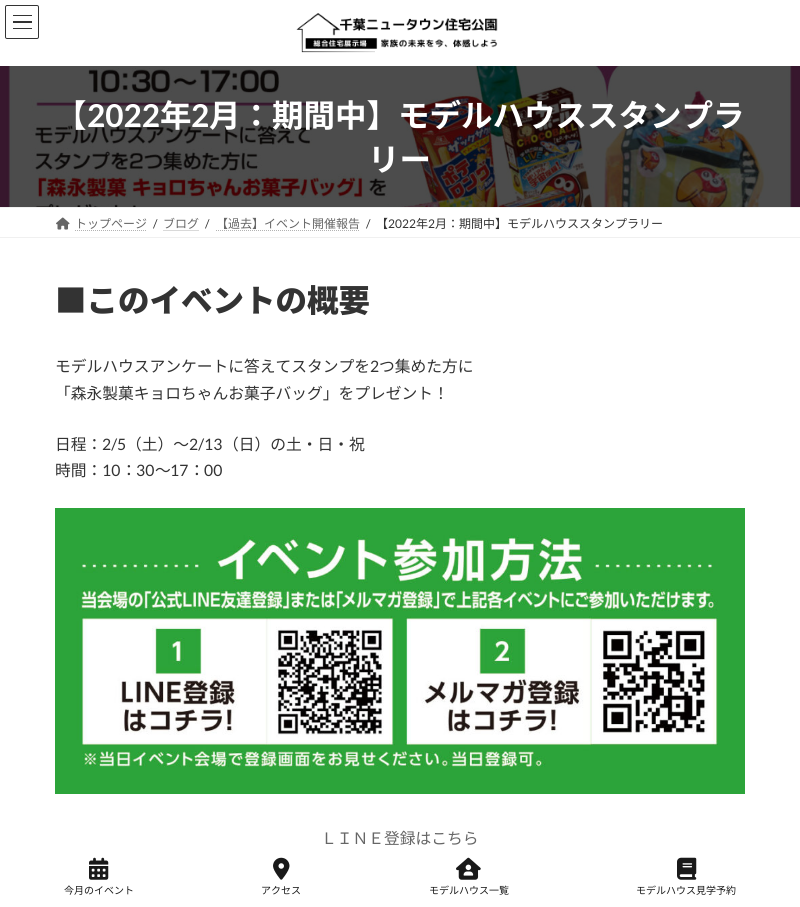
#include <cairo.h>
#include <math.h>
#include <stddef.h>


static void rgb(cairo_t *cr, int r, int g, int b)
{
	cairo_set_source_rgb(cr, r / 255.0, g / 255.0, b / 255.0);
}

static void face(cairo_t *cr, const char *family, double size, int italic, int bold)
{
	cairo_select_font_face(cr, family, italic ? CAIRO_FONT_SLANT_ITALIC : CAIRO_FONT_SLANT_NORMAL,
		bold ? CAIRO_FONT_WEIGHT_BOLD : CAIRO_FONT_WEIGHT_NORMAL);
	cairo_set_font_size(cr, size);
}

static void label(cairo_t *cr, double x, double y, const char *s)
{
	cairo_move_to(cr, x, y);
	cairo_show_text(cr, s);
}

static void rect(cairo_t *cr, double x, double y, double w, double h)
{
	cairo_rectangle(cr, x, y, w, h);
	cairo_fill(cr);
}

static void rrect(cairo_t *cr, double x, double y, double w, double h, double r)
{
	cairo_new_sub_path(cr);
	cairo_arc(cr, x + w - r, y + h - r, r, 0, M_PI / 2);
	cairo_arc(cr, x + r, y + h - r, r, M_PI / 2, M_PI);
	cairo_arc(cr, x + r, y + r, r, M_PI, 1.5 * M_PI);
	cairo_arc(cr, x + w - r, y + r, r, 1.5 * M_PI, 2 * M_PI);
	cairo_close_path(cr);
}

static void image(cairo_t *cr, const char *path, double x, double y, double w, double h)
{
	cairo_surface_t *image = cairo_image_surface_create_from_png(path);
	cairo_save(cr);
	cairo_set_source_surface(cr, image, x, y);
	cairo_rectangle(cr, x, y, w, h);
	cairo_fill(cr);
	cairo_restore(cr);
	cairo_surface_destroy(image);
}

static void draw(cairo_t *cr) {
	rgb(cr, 255, 255, 255);
	cairo_paint(cr);
	rgb(cr, 51, 51, 51);
	rect(cr, 13, 15, 19, 1);
	rect(cr, 13, 21, 19, 2);
	rect(cr, 13, 28, 19, 1);
	rrect(cr, 5.5, 5.5, 33, 33, 1.5);
	cairo_set_line_width(cr, 1);
	cairo_stroke(cr);
	image(cr, "image0.png", 296, 13, 202, 40);
	image(cr, "image1.png", 0, 66, 800, 141);
	face(cr, "Noto Sans JP", 31.5, 0, 1);
	rgb(cr, 255, 255, 255);
	label(cr, 55, 127, "【");
	face(cr, "Lato", 31.5, 0, 1);
	label(cr, 87, 127, "2022");
	face(cr, "Noto Sans JP", 31.5, 0, 1);
	label(cr, 160, 127, "年");
	face(cr, "Lato", 31.5, 0, 1);
	label(cr, 191, 127, "2");
	face(cr, "Noto Sans JP", 31.5, 0, 1);
	label(cr, 209, 127, "月：期間中】モデルハウススタンプラ");
	label(cr, 368, 171, "リー");
	rgb(cr, 240, 240, 240);
	rect(cr, 0, 207, 800, 1);
	rect(cr, 0, 237, 800, 1);
	image(cr, "image2.png", 56, 217, 14, 13);
	face(cr, "Noto Sans JP", 12, 0, 0);
	rgb(cr, 102, 102, 102);
	label(cr, 75, 228, "トップページ");
	cairo_new_path(cr);
	cairo_move_to(cr, 75, 230.5);
	cairo_line_to(cr, 147, 230.5);
	rgb(cr, 179, 179, 179);
	cairo_set_dash(cr, (double[]){1, 1}, 2, 0);
	cairo_stroke(cr);
	face(cr, "Lato", 12, 0, 0);
	rgb(cr, 51, 51, 51);
	label(cr, 153, 228, "/");
	face(cr, "Noto Sans JP", 12, 0, 0);
	rgb(cr, 102, 102, 102);
	label(cr, 163, 228, "ブログ");
	cairo_new_path(cr);
	cairo_move_to(cr, 163.5, 230.5);
	cairo_line_to(cr, 199.5, 230.5);
	rgb(cr, 179, 179, 179);
	cairo_stroke(cr);
	face(cr, "Lato", 12, 0, 0);
	rgb(cr, 51, 51, 51);
	label(cr, 205, 228, "/");
	face(cr, "Noto Sans JP", 12, 0, 0);
	rgb(cr, 102, 102, 102);
	label(cr, 216, 228, "【過去】イベント開催報告");
	cairo_new_path(cr);
	cairo_move_to(cr, 216, 230.5);
	cairo_line_to(cr, 360, 230.5);
	rgb(cr, 179, 179, 179);
	cairo_stroke(cr);
	face(cr, "Lato", 12, 0, 0);
	rgb(cr, 51, 51, 51);
	label(cr, 366, 228, "/");
	face(cr, "Noto Sans JP", 12, 0, 0);
	label(cr, 376, 228, "【");
	face(cr, "Lato", 12, 0, 0);
	label(cr, 388, 228, "2022");
	face(cr, "Noto Sans JP", 12, 0, 0);
	label(cr, 416, 228, "年");
	face(cr, "Lato", 12, 0, 0);
	label(cr, 428, 228, "2");
	face(cr, "Noto Sans JP", 12, 0, 0);
	label(cr, 435, 228, "月：期間中】モデルハウススタンプラリー");
	face(cr, "Noto Sans JP Black", 31.5, 0, 0);
	label(cr, 55, 312, "■このイベントの概要");
	face(cr, "Noto Sans JP", 15.75, 0, 0);
	label(cr, 55, 372, "モデルハウスアンケートに答えてスタンプを");
	face(cr, "Lato", 15.75, 0, 0);
	label(cr, 370, 372, "2");
	face(cr, "Noto Sans JP", 15.75, 0, 0);
	label(cr, 379, 372, "つ集めた方に");
	label(cr, 55, 399, "「森永製菓キョロちゃんお菓子バッグ」をプレゼント！");
	label(cr, 55, 450, "日程：");
	face(cr, "Lato", 15.75, 0, 0);
	label(cr, 102, 450, "2/5");
	face(cr, "Noto Sans JP", 15.75, 0, 0);
	label(cr, 126, 450, "（土）～");
	face(cr, "Lato", 15.75, 0, 0);
	label(cr, 189, 450, "2/13");
	face(cr, "Noto Sans JP", 15.75, 0, 0);
	label(cr, 223, 450, "（日）の土・日・祝");
	label(cr, 55, 476, "時間：");
	face(cr, "Lato", 15.75, 0, 0);
	label(cr, 102, 476, "10");
	face(cr, "Noto Sans JP", 15.75, 0, 0);
	label(cr, 121, 476, "：");
	face(cr, "Lato", 15.75, 0, 0);
	label(cr, 136, 476, "30");
	face(cr, "Noto Sans JP", 15.75, 0, 0);
	label(cr, 155, 476, "～");
	face(cr, "Lato", 15.75, 0, 0);
	label(cr, 170, 476, "17");
	face(cr, "Noto Sans JP", 15.75, 0, 0);
	label(cr, 189, 476, "：");
	face(cr, "Lato", 15.75, 0, 0);
	label(cr, 204, 476, "00");
	image(cr, "image3.png", 55, 508, 690, 286);
	face(cr, "Noto Sans JP", 15.75, 0, 0);
	rgb(cr, 102, 102, 102);
	label(cr, 321, 844, "ＬＩＮＥ登録はこちら");
	rgb(cr, 255, 255, 255);
	rect(cr, 409, 845, 2, 1);
	image(cr, "image4.png", 89, 857, 20, 23);
	face(cr, "Noto Sans JP", 10, 0, 0);
	rgb(cr, 26, 26, 26);
	label(cr, 64, 894, "今月のイベント");
	image(cr, "image5.png", 273, 857, 17, 23);
	label(cr, 261, 894, "アクセス");
	image(cr, "image6.png", 456, 857, 25, 23);
	label(cr, 429, 894, "モデルハウス一覧");
	image(cr, "image7.png", 677, 857, 20, 23);
	label(cr, 636, 894, "モデルハウス見学予約");
}

int main(void) {
	cairo_surface_t *surface = cairo_image_surface_create(CAIRO_FORMAT_RGB24, 800, 907);
	cairo_t *cr = cairo_create(surface);
	cairo_font_options_t *options = cairo_font_options_create();
	cairo_font_options_set_hint_metrics(options, CAIRO_HINT_METRICS_OFF);
	cairo_font_options_set_hint_style(options, CAIRO_HINT_STYLE_NONE);
	cairo_set_font_options(cr, options);
	cairo_set_miter_limit(cr, 4);
	draw(cr);
	cairo_surface_write_to_png(surface, "render.png");
	cairo_font_options_destroy(options);
	cairo_destroy(cr);
	cairo_surface_destroy(surface);
	return 0;
}
